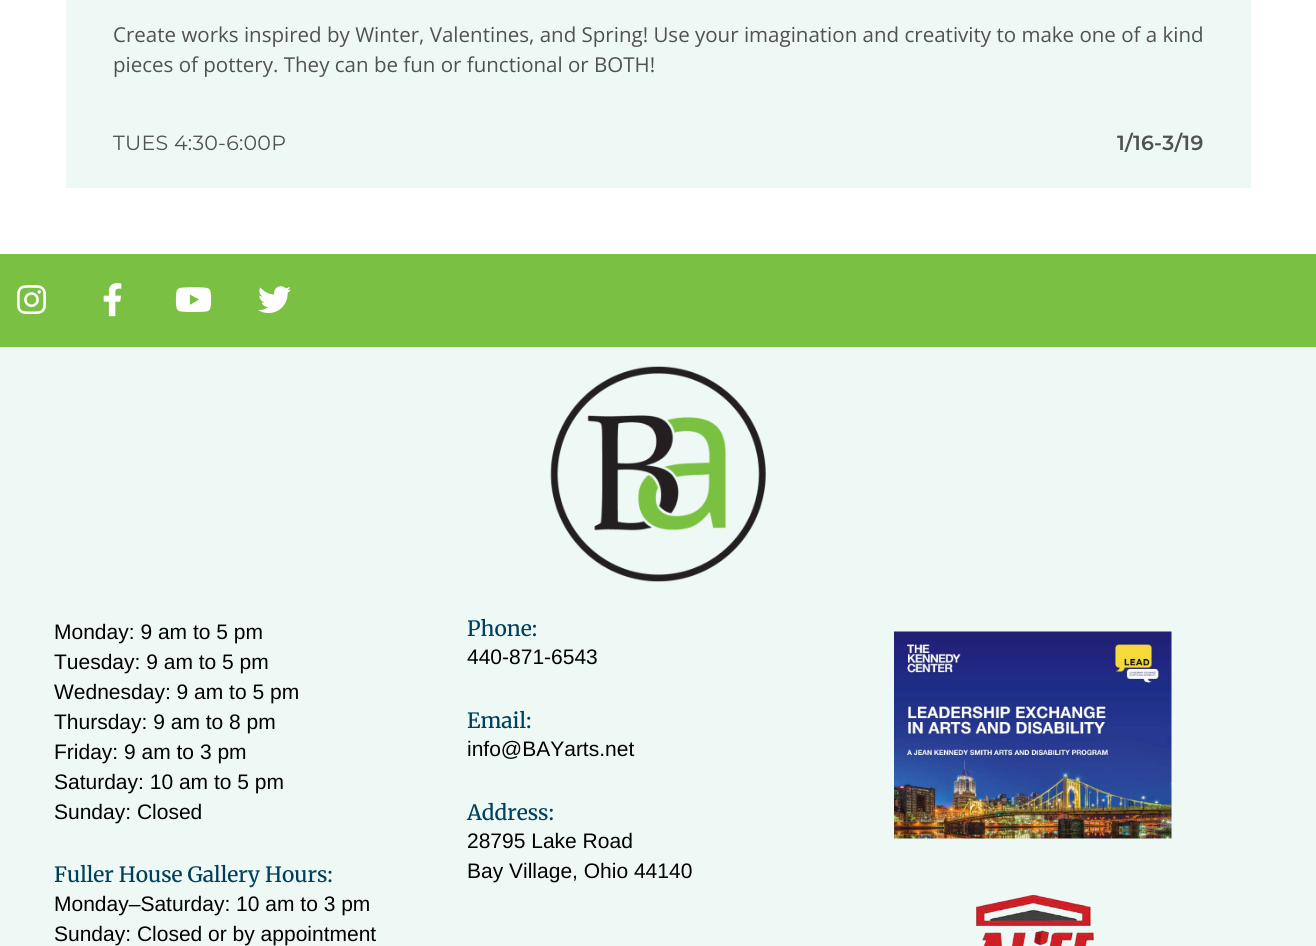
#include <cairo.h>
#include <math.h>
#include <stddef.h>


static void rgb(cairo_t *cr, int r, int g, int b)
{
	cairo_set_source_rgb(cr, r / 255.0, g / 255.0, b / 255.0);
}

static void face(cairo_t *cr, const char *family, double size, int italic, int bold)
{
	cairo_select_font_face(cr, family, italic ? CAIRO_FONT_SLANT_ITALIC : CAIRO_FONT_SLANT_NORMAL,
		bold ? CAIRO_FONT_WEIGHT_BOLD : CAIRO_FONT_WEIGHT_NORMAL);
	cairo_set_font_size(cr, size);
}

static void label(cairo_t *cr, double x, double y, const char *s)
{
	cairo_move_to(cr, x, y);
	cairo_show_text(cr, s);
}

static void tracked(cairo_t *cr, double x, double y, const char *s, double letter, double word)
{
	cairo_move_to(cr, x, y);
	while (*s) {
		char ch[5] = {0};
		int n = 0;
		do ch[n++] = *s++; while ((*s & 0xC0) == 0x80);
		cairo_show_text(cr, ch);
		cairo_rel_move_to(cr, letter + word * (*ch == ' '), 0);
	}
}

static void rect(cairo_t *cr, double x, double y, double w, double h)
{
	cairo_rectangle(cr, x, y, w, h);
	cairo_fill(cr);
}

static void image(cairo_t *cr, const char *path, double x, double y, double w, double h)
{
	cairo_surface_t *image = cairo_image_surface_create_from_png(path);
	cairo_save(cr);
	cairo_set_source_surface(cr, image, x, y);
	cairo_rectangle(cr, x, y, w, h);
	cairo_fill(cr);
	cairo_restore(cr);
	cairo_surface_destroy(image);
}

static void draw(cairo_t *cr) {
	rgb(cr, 255, 255, 255);
	cairo_paint(cr);
	rgb(cr, 238, 249, 245);
	rect(cr, 66, 0, 1185, 188);
	face(cr, "Open Sans", 20.52, 0, 0);
	rgb(cr, 81, 81, 81);
	label(cr, 113, 42, "Create works inspired by Winter, Valentines, and Spring! Use your imagination and creativity to make one of a kind");
	label(cr, 113, 72, "pieces of pottery. They can be fun or functional or BOTH!");
	face(cr, "Montserrat", 20.52, 0, 0);
	tracked(cr, 113, 150, "TUES 4:30-6:00P", 0.25, 0);
	face(cr, "Montserrat SemiBold", 20.52, 0, 0);
	tracked(cr, 1117, 150, "1/16-3/19", 0.25, 0);
	rgb(cr, 122, 193, 67);
	rect(cr, 0, 254, 1316, 93);
	image(cr, "image0.png", 17, 285, 29, 30);
	image(cr, "image1.png", 103, 283, 19, 34);
	image(cr, "image2.png", 175, 287, 37, 25);
	image(cr, "image3.png", 258, 286, 33, 27);
	rgb(cr, 238, 249, 245);
	rect(cr, 0, 347, 1316, 599);
	image(cr, "image4.png", 550, 366, 216, 216);
	face(cr, "Liberation Sans", 21, 0, 0);
	rgb(cr, 0, 0, 0);
	label(cr, 54, 639, "Monday: 9 am to 5 pm");
	rgb(cr, 238, 249, 245);
	rect(cr, 129, 620, 1, 9);
	rgb(cr, 0, 0, 0);
	label(cr, 54, 669, "Tuesday: 9 am to 5 pm");
	label(cr, 54, 699, "Wednesday: 9 am to 5 pm");
	label(cr, 54, 729, "Thursday: 9 am to 8 pm");
	label(cr, 54, 759, "Friday: 9 am to 3 pm");
	label(cr, 54, 789, "Saturday: 10 am to 5 pm");
	label(cr, 54, 819, "Sunday: Closed");
	face(cr, "Merriweather Medium", 21, 0, 0);
	rgb(cr, 0, 64, 93);
	label(cr, 54, 882, "Fuller House Gallery Hours:");
	face(cr, "Liberation Sans", 21, 0, 0);
	rgb(cr, 0, 0, 0);
	label(cr, 54, 911, "Monday–Saturday: 10 am to 3 pm");
	label(cr, 54, 941, "Sunday: Closed or by appointment");
	face(cr, "Merriweather Medium", 21, 0, 0);
	rgb(cr, 0, 64, 93);
	label(cr, 467, 636, "Phone:");
	face(cr, "Liberation Sans", 21, 0, 0);
	rgb(cr, 0, 0, 0);
	label(cr, 467, 664, "440-871-6543");
	face(cr, "Merriweather Medium", 21, 0, 0);
	rgb(cr, 0, 64, 93);
	label(cr, 467, 728, "Email:");
	face(cr, "Liberation Sans", 21, 0, 0);
	rgb(cr, 0, 0, 0);
	label(cr, 467, 756, "info@BAYarts.net");
	face(cr, "Merriweather Medium", 21, 0, 0);
	rgb(cr, 0, 64, 93);
	label(cr, 467, 820, "Address:");
	face(cr, "Liberation Sans", 21, 0, 0);
	rgb(cr, 0, 0, 0);
	label(cr, 467, 848, "28795 Lake Road");
	label(cr, 467, 878, "Bay Village, Ohio 44140");
	image(cr, "image5.png", 894, 631, 278, 208);
	image(cr, "image6.png", 975, 894, 119, 52);
}

int main(void) {
	cairo_surface_t *surface = cairo_image_surface_create(CAIRO_FORMAT_RGB24, 1316, 946);
	cairo_t *cr = cairo_create(surface);
	cairo_font_options_t *options = cairo_font_options_create();
	cairo_font_options_set_hint_metrics(options, CAIRO_HINT_METRICS_OFF);
	cairo_font_options_set_hint_style(options, CAIRO_HINT_STYLE_NONE);
	cairo_set_font_options(cr, options);
	cairo_set_miter_limit(cr, 4);
	draw(cr);
	cairo_surface_write_to_png(surface, "render.png");
	cairo_font_options_destroy(options);
	cairo_destroy(cr);
	cairo_surface_destroy(surface);
	return 0;
}
